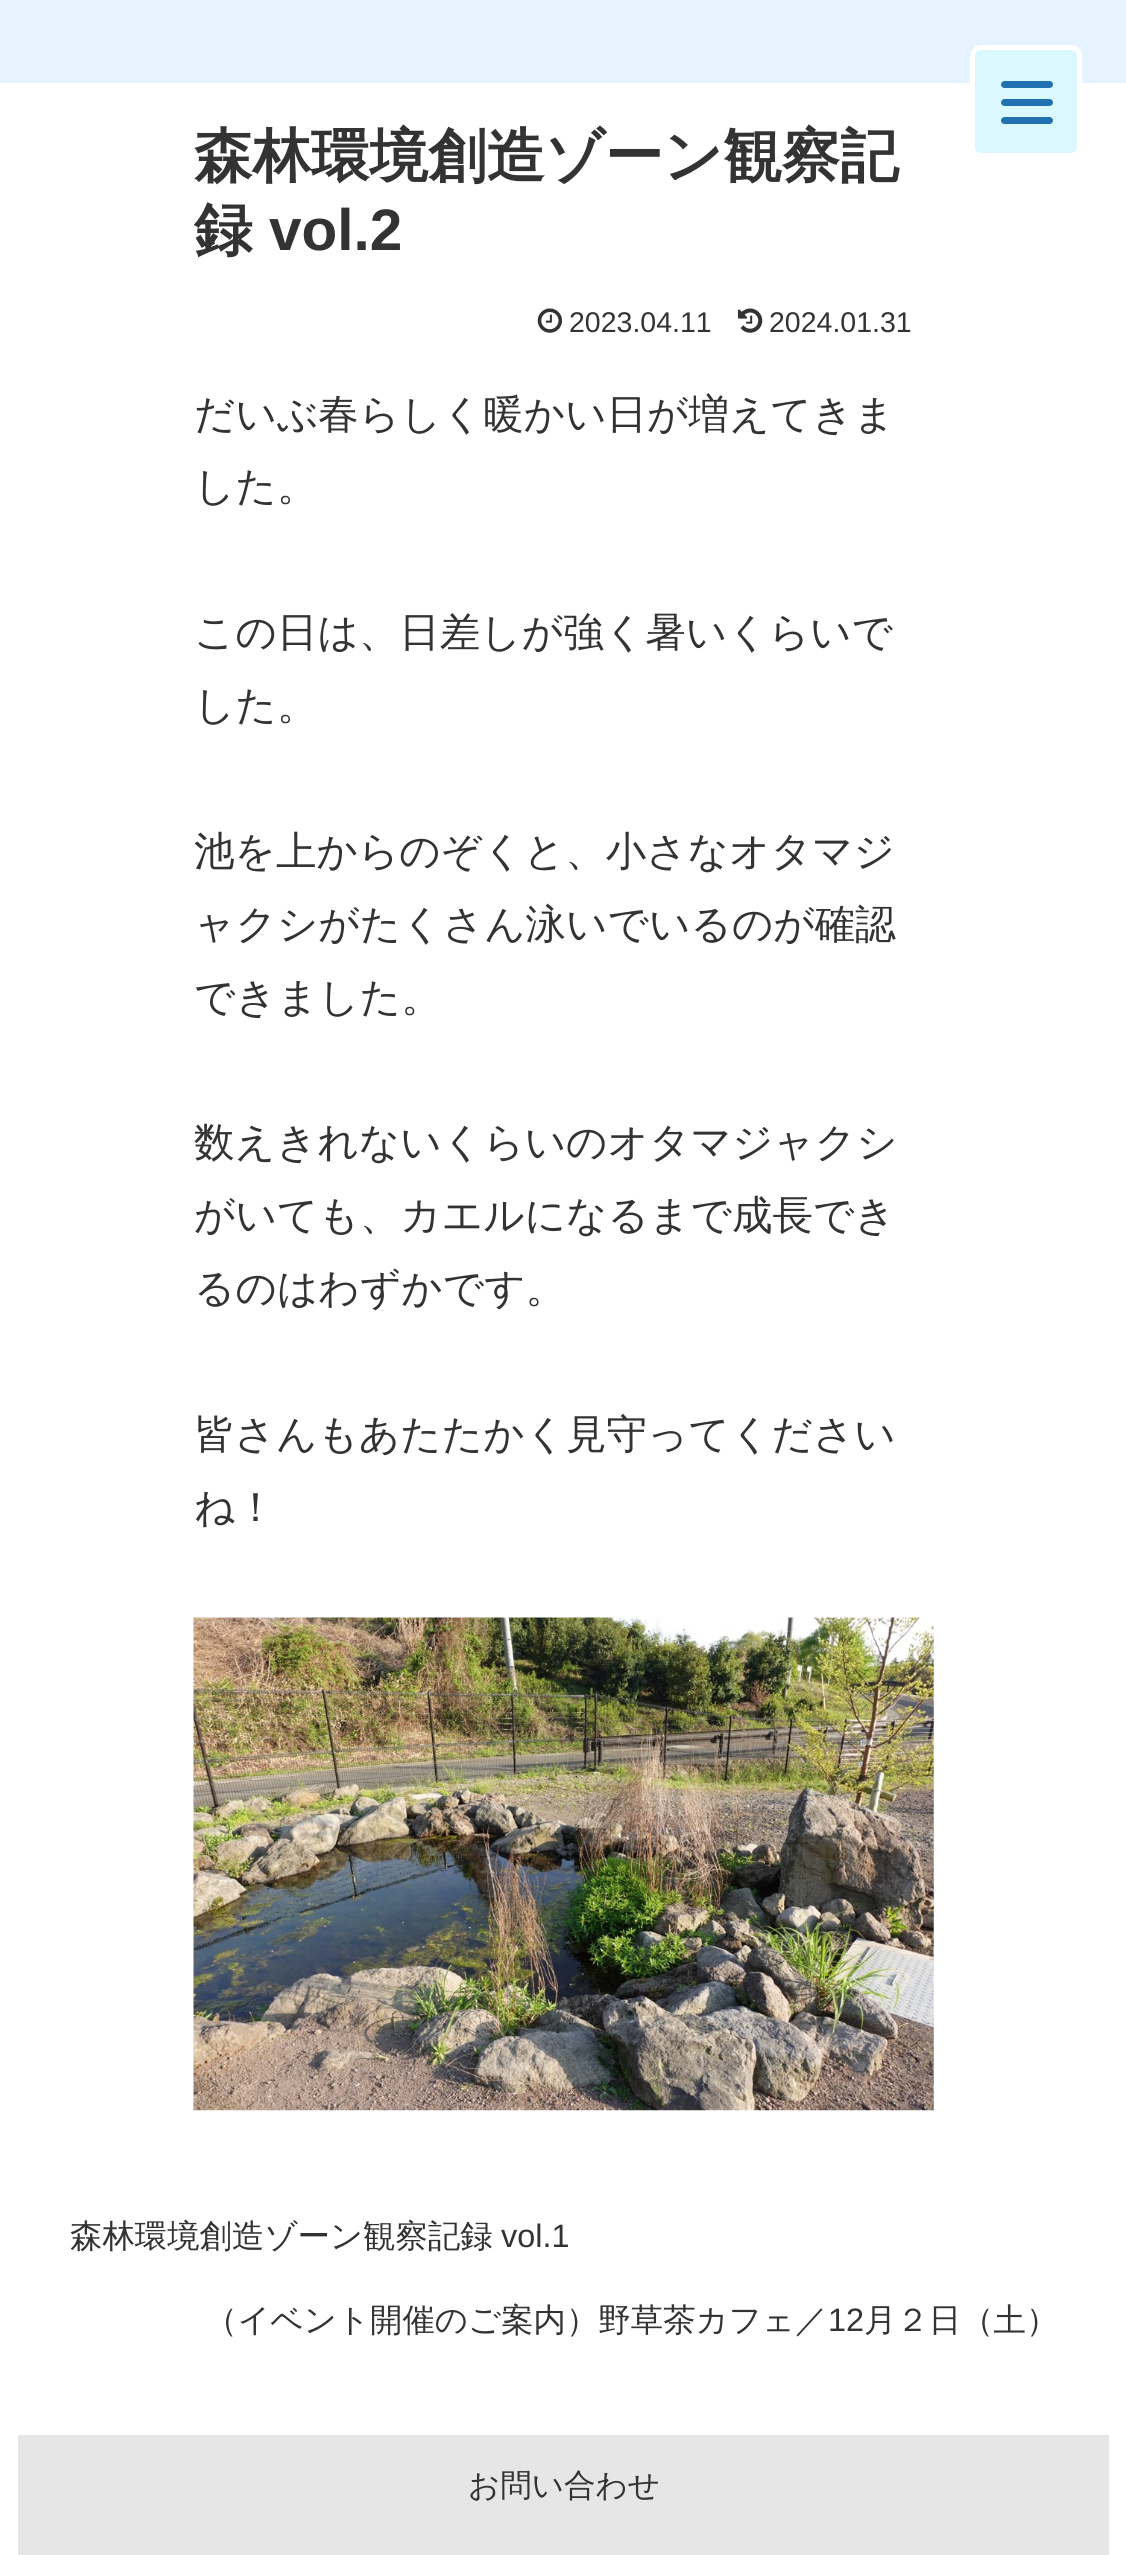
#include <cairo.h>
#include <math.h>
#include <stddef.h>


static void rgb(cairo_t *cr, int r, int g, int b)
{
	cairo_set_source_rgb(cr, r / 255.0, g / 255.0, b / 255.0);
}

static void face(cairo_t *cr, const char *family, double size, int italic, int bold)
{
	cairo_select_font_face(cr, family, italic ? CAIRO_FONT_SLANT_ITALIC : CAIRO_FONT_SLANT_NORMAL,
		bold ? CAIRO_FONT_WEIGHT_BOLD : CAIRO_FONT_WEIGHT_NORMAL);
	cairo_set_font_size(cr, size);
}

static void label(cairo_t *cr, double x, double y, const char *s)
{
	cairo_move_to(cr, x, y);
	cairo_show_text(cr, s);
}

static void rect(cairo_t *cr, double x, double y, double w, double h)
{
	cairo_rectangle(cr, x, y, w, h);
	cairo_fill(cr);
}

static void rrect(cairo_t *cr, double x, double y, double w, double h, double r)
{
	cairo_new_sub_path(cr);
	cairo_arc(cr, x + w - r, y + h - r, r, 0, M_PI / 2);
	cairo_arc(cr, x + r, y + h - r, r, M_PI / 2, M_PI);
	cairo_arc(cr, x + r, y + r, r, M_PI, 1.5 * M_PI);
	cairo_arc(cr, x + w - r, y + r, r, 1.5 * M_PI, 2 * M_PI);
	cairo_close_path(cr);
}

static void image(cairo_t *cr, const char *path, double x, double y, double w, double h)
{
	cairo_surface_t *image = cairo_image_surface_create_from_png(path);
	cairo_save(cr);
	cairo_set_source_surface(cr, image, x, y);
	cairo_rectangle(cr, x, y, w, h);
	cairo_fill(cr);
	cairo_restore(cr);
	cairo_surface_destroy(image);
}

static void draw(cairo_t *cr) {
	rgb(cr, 255, 255, 255);
	cairo_paint(cr);
	rgb(cr, 230, 242, 255);
	rect(cr, 0, 0, 1126, 83);
	rgb(cr, 219, 248, 255);
	rrect(cr, 972.5, 47.5, 107, 108, 8.5);
	cairo_fill_preserve(cr);
	rgb(cr, 255, 255, 255);
	cairo_set_line_width(cr, 5);
	cairo_stroke(cr);
	rgb(cr, 34, 113, 177);
	rrect(cr, 1001, 99, 52, 7, 3.5);
	cairo_fill(cr);
	rrect(cr, 1001, 81, 52, 7, 3.5);
	cairo_fill(cr);
	rrect(cr, 1001, 117, 52, 7, 3.5);
	cairo_fill(cr);
	face(cr, "WenQuanYi Zen Hei", 58.5, 0, 1);
	rgb(cr, 51, 51, 51);
	label(cr, 194, 176, "森林環境創造ゾーン観察記");
	label(cr, 194, 250, "録");
	face(cr, "Liberation Sans", 58.5, 0, 1);
	label(cr, 269, 250, "vol.2");
	image(cr, "image0.png", 537, 308, 26, 25);
	face(cr, "Liberation Sans", 28.5, 0, 0);
	label(cr, 569, 332, "2023.04.11");
	image(cr, "image1.png", 738, 308, 25, 25);
	label(cr, 769, 332, "2024.01.31");
	face(cr, "WenQuanYi Zen Hei Medium", 40.5, 0, 0);
	label(cr, 194, 428, "だいぶ春らしく暖かい日が増えてきま");
	label(cr, 194, 500, "した。");
	label(cr, 194, 646, "この日は、日差しが強く暑いくらいで");
	label(cr, 194, 719, "した。");
	label(cr, 194, 865, "池を上からのぞくと、小さなオタマジ");
	label(cr, 194, 938, "ャクシがたくさん泳いでいるのが確認");
	label(cr, 194, 1011, "できました。");
	label(cr, 194, 1156, "数えきれないくらいのオタマジャクシ");
	label(cr, 194, 1229, "がいても、カエルになるまで成長でき");
	label(cr, 194, 1302, "るのはわずかです。");
	label(cr, 194, 1448, "皆さんもあたたかく見守ってください");
	label(cr, 194, 1521, "ね！");
	image(cr, "image2.png", 193, 1617, 741, 494);
	face(cr, "WenQuanYi Zen Hei Medium", 32.4, 0, 0);
	label(cr, 70, 2247, "森林環境創造ゾーン観察記録");
	face(cr, "Liberation Sans", 32.4, 0, 0);
	label(cr, 501, 2247, "vol.1");
	face(cr, "WenQuanYi Zen Hei Medium", 32.4, 0, 0);
	label(cr, 205, 2331, "（イベント開催のご案内）野草茶カフェ／");
	face(cr, "Liberation Sans", 32.4, 0, 0);
	label(cr, 828, 2331, "12");
	face(cr, "WenQuanYi Zen Hei Medium", 32.4, 0, 0);
	label(cr, 864, 2331, "月２日（土）");
	rgb(cr, 230, 230, 230);
	rect(cr, 18, 2435, 1091, 120);
	face(cr, "WenQuanYi Zen Hei Medium", 31.5, 0, 0);
	rgb(cr, 51, 51, 51);
	label(cr, 468, 2496, "お問い合わせ");
}

int main(void) {
	cairo_surface_t *surface = cairo_image_surface_create(CAIRO_FORMAT_RGB24, 1126, 2555);
	cairo_t *cr = cairo_create(surface);
	cairo_font_options_t *options = cairo_font_options_create();
	cairo_font_options_set_hint_metrics(options, CAIRO_HINT_METRICS_OFF);
	cairo_font_options_set_hint_style(options, CAIRO_HINT_STYLE_NONE);
	cairo_set_font_options(cr, options);
	cairo_set_miter_limit(cr, 4);
	draw(cr);
	cairo_surface_write_to_png(surface, "render.png");
	cairo_font_options_destroy(options);
	cairo_destroy(cr);
	cairo_surface_destroy(surface);
	return 0;
}
